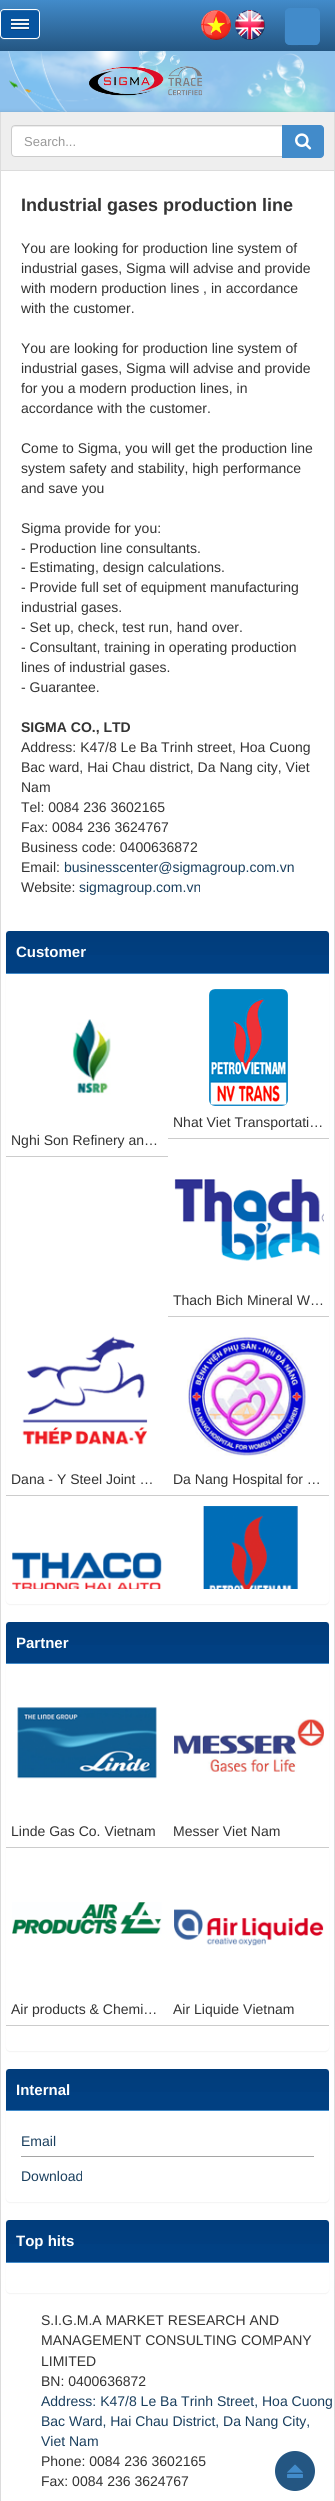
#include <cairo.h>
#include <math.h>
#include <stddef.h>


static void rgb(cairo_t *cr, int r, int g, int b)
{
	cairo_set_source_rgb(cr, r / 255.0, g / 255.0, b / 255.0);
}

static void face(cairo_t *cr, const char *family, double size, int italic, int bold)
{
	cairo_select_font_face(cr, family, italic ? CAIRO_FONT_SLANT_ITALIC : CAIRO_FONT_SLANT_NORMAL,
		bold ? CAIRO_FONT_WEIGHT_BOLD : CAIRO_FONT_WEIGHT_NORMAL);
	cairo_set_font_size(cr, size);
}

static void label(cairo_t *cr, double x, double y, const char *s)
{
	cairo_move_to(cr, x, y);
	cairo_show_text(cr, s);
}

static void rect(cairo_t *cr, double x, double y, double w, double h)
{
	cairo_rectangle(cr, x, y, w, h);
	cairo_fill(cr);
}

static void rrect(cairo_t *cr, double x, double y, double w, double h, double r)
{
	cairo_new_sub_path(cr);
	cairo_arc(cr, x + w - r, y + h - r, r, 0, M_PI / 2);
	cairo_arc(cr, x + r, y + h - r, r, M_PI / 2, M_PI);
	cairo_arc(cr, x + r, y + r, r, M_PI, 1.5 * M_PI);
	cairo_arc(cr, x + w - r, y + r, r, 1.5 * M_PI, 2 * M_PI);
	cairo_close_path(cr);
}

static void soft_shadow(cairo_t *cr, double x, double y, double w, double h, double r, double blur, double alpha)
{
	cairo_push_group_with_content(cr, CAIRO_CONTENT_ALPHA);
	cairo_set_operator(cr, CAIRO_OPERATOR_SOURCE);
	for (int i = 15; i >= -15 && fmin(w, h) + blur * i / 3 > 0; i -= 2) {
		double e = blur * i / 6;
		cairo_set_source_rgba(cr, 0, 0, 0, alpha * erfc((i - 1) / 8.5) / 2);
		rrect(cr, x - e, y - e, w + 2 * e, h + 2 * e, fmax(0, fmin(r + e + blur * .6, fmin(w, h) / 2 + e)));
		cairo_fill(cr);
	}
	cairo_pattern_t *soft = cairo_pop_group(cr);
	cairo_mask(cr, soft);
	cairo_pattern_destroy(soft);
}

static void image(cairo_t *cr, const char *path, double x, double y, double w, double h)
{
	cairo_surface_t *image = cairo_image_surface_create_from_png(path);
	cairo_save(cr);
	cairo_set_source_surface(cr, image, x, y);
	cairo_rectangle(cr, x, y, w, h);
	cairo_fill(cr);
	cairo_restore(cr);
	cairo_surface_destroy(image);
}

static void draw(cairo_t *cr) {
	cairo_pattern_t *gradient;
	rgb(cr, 255, 255, 255);
	cairo_paint(cr);
	image(cr, "image0.png", 0, 0, 335, 112);
	rgb(cr, 59, 110, 154);
	cairo_new_path(cr);
	cairo_move_to(cr, 0, 35);
	cairo_curve_to(cr, 0, 41, 5, 40, 9, 40);
	cairo_line_to(cr, 31, 40);
	cairo_curve_to(cr, 35, 40, 40, 41, 40, 35);
	cairo_curve_to(cr, 40, 37, 38, 39, 36, 39);
	cairo_line_to(cr, 4, 39);
	cairo_curve_to(cr, 2, 39, 0, 37, 0, 35);
	cairo_close_path(cr);
	cairo_fill(cr);
	rgb(cr, 8, 85, 161);
	rrect(cr, 0, 9, 40, 30, 4);
	cairo_fill(cr);
	rgb(cr, 33, 102, 170);
	cairo_new_path(cr);
	cairo_move_to(cr, 4, 11);
	cairo_line_to(cr, 36, 11);
	cairo_curve_to(cr, 38, 11, 39, 12, 39, 14);
	cairo_curve_to(cr, 39, 9, 35, 10, 30.5, 10);
	cairo_line_to(cr, 9.5, 10);
	cairo_curve_to(cr, 5, 10, 1, 9, 1, 14);
	cairo_curve_to(cr, 1, 12, 2, 11, 4, 11);
	cairo_close_path(cr);
	cairo_fill(cr);
	rrect(cr, 0.5, 9.5, 39, 29, 3.5);
	rgb(cr, 255, 255, 255);
	cairo_set_line_width(cr, 1);
	cairo_stroke(cr);
	rgb(cr, 6, 64, 121);
	rect(cr, 11, 21, 18, 1);
	rgb(cr, 245, 245, 245);
	rect(cr, 11, 19, 18, 2);
	rgb(cr, 6, 64, 121);
	rect(cr, 11, 25, 18, 1);
	rgb(cr, 245, 245, 245);
	rect(cr, 11, 23, 18, 2);
	rgb(cr, 6, 64, 121);
	rect(cr, 11, 29, 18, 1);
	rgb(cr, 245, 245, 245);
	rect(cr, 11, 27, 18, 2);
	image(cr, "image1.png", 201, 10, 30, 30);
	image(cr, "image2.png", 235, 10, 30, 30);
	rgb(cr, 66, 139, 202);
	rrect(cr, 285, 8, 35, 37, 5);
	cairo_fill(cr);
	cairo_new_path(cr);
	cairo_move_to(cr, 318, 43);
	cairo_curve_to(cr, 316, 44.5, 313, 44, 311, 44);
	cairo_line_to(cr, 302.5, 44);
	cairo_curve_to(cr, 283, 44, 286, 46.5, 286, 26.5);
	cairo_line_to(cr, 286, 17.5);
	cairo_curve_to(cr, 286, 15.5, 285.5, 12, 287, 10);
	cairo_set_line_width(cr, 2);
	cairo_stroke(cr);
	image(cr, "image3.png", 89, 66, 113, 30);
	rgb(cr, 0, 0, 0);
	soft_shadow(cr, 0, 112, 335, 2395, 0, 2, 0.15);
	rgb(cr, 255, 255, 255);
	rect(cr, 1, 171, 333, 2330);
	rgb(cr, 220, 220, 220);
	rect(cr, 334, 112, 1, 2389);
	rect(cr, 0, 112, 1, 2389);
	rect(cr, 1, 170, 333, 1);
	rgb(cr, 238, 238, 238);
	rect(cr, 1, 112, 333, 58);
	rgb(cr, 255, 255, 255);
	cairo_new_path(cr);
	cairo_move_to(cr, 15, 125);
	cairo_line_to(cr, 283, 125);
	cairo_line_to(cr, 283, 157);
	cairo_line_to(cr, 15, 157);
	cairo_curve_to(cr, 13, 157, 11, 155, 11, 153);
	cairo_line_to(cr, 11, 129);
	cairo_curve_to(cr, 11, 127, 13, 125, 15, 125);
	cairo_close_path(cr);
	cairo_fill(cr);
	rgb(cr, 236, 236, 236);
	cairo_new_path(cr);
	cairo_move_to(cr, 15, 127);
	cairo_line_to(cr, 282, 127);
	cairo_line_to(cr, 282, 126);
	cairo_line_to(cr, 15, 126);
	cairo_curve_to(cr, 13, 126, 12, 127, 12, 129);
	cairo_line_to(cr, 12, 130);
	cairo_curve_to(cr, 12, 128, 13, 127, 15, 127);
	cairo_close_path(cr);
	cairo_fill(cr);
	cairo_new_path(cr);
	cairo_move_to(cr, 15, 125.5);
	cairo_line_to(cr, 282.5, 125.5);
	cairo_line_to(cr, 282.5, 156.5);
	cairo_line_to(cr, 15, 156.5);
	cairo_curve_to(cr, 13, 156.5, 11.5, 155, 11.5, 153);
	cairo_line_to(cr, 11.5, 129);
	cairo_curve_to(cr, 11.5, 127, 13, 125.5, 15, 125.5);
	cairo_close_path(cr);
	rgb(cr, 204, 204, 204);
	cairo_set_line_width(cr, 1);
	cairo_stroke(cr);
	face(cr, "Liberation Sans", 13, 0, 0);
	rgb(cr, 153, 153, 153);
	label(cr, 24, 146, "Search...");
	rgb(cr, 66, 139, 202);
	cairo_new_path(cr);
	cairo_move_to(cr, 282.5, 125.5);
	cairo_line_to(cr, 320, 125.5);
	cairo_curve_to(cr, 322, 125.5, 323.5, 127, 323.5, 129);
	cairo_line_to(cr, 323.5, 154);
	cairo_curve_to(cr, 323.5, 156, 322, 157.5, 320, 157.5);
	cairo_line_to(cr, 282.5, 157.5);
	cairo_close_path(cr);
	cairo_fill_preserve(cr);
	cairo_stroke(cr);
	image(cr, "image4.png", 295, 133, 17, 17);
	face(cr, "Liberation Sans", 18, 0, 1);
	rgb(cr, 51, 51, 51);
	label(cr, 21, 211, "Industrial gases production line");
	face(cr, "Liberation Sans", 14, 0, 0);
	label(cr, 21, 253, "You are looking for production line system of");
	label(cr, 21, 273, "industrial gases, Sigma will advise and provide");
	label(cr, 21, 293, "with modern production lines , in accordance");
	label(cr, 21, 313, "with the customer.");
	label(cr, 21, 353, "You are looking for production line system of");
	label(cr, 21, 373, "industrial gases, Sigma will advise and provide");
	label(cr, 21, 393, "for you a modern production lines, in");
	label(cr, 21, 413, "accordance with the customer.");
	label(cr, 21, 453, "Come to Sigma, you will get the production line");
	label(cr, 21, 473, "system safety and stability, high performance");
	label(cr, 21, 493, "and save you");
	label(cr, 21, 533, "Sigma provide for you:");
	label(cr, 21, 553, "- Production line consultants.");
	label(cr, 21, 572, "- Estimating, design calculations.");
	label(cr, 21, 592, "- Provide full set of equipment manufacturing");
	label(cr, 21, 612, "industrial gases.");
	label(cr, 21, 632, "- Set up, check, test run, hand over.");
	label(cr, 21, 652, "- Consultant, training in operating production");
	label(cr, 21, 672, "lines of industrial gases.");
	label(cr, 21, 692, "- Guarantee.");
	face(cr, "Liberation Sans", 14, 0, 1);
	label(cr, 21, 732, "SIGMA CO., LTD");
	face(cr, "Liberation Sans", 14, 0, 0);
	label(cr, 21, 752, "Address: K47/8 Le Ba Trinh street, Hoa Cuong");
	label(cr, 21, 772, "Bac ward, Hai Chau district, Da Nang city, Viet");
	label(cr, 21, 792, "Nam");
	label(cr, 21, 812, "Tel: 0084 236 3602165");
	label(cr, 21, 832, "Fax: 0084 236 3624767");
	label(cr, 21, 852, "Business code: 0400636872");
	label(cr, 21, 872, "Email:");
	rgb(cr, 26, 63, 94);
	label(cr, 64, 872, "businesscenter@sigmagroup.com.vn");
	rgb(cr, 51, 51, 51);
	label(cr, 21, 892, "Website:");
	rgb(cr, 26, 63, 94);
	label(cr, 79, 892, "sigmagroup.com.vn");
	rgb(cr, 0, 0, 0);
	soft_shadow(cr, 6, 932, 323, 673, 4, 0.5, 0.05);
	rgb(cr, 255, 255, 255);
	rrect(cr, 6, 931, 323, 673, 4);
	cairo_fill(cr);
	rgb(cr, 1, 64, 130);
	cairo_new_path(cr);
	cairo_move_to(cr, 9, 931);
	cairo_line_to(cr, 326, 931);
	cairo_curve_to(cr, 327.5, 931, 329, 932.5, 329, 934);
	cairo_line_to(cr, 329, 974);
	cairo_line_to(cr, 6, 974);
	cairo_line_to(cr, 6, 934);
	cairo_curve_to(cr, 6, 932.5, 7.5, 931, 9, 931);
	cairo_close_path(cr);
	cairo_fill(cr);
	gradient = cairo_pattern_create_linear(168, 931, 168, 973);
	cairo_pattern_add_color_stop_rgba(gradient, 0, 0, 0, 0, 0.05);
	cairo_pattern_add_color_stop_rgba(gradient, 1, 0, 0, 0, 0);
	cairo_set_source(cr, gradient);
	cairo_pattern_destroy(gradient);
	rect(cr, 6, 931, 323, 24);
	rgb(cr, 66, 139, 202);
	rect(cr, 6, 973, 323, 1);
	face(cr, "Liberation Sans", 15, 0, 1);
	rgb(cr, 255, 255, 255);
	label(cr, 16, 957, "Customer");
	rgb(cr, 204, 204, 204);
	rect(cr, 168, 1138, 161, 1);
	image(cr, "image5.png", 209, 989, 79, 117);
	face(cr, "Liberation Sans", 14, 0, 0);
	rgb(cr, 51, 51, 51);
	label(cr, 173, 1127, "Nhat Viet Transportati…");
	rgb(cr, 204, 204, 204);
	rect(cr, 6, 1156, 162, 1);
	image(cr, "image6.png", 72, 1019, 39, 76);
	rgb(cr, 51, 51, 51);
	label(cr, 11, 1145, "Nghi Son Refinery an…");
	rgb(cr, 204, 204, 204);
	rect(cr, 168, 1316, 161, 1);
	image(cr, "image7.png", 174, 1179, 150, 82);
	rgb(cr, 51, 51, 51);
	label(cr, 173, 1305, "Thach Bich Mineral W…");
	rgb(cr, 204, 204, 204);
	rect(cr, 6, 1495, 323, 1);
	image(cr, "image8.png", 22, 1336, 126, 109);
	rgb(cr, 51, 51, 51);
	label(cr, 11, 1484, "Dana - Y Steel Joint …");
	image(cr, "image9.png", 187, 1336, 119, 120);
	label(cr, 173, 1484, "Da Nang Hospital for …");
	image(cr, "image10.png", 12, 1552, 150, 37);
	image(cr, "image11.png", 203, 1506, 95, 83);
	rgb(cr, 0, 0, 0);
	soft_shadow(cr, 6, 1623, 323, 429, 4, 0.5, 0.05);
	rgb(cr, 255, 255, 255);
	rrect(cr, 6, 1622, 323, 429, 4);
	cairo_fill(cr);
	rgb(cr, 1, 64, 130);
	cairo_new_path(cr);
	cairo_move_to(cr, 9, 1622);
	cairo_line_to(cr, 326, 1622);
	cairo_curve_to(cr, 327.5, 1622, 329, 1623.5, 329, 1625);
	cairo_line_to(cr, 329, 1664);
	cairo_line_to(cr, 6, 1664);
	cairo_line_to(cr, 6, 1625);
	cairo_curve_to(cr, 6, 1623.5, 7.5, 1622, 9, 1622);
	cairo_close_path(cr);
	cairo_fill(cr);
	gradient = cairo_pattern_create_linear(168, 1622, 168, 1663);
	cairo_pattern_add_color_stop_rgba(gradient, 0, 0, 0, 0, 0.05);
	cairo_pattern_add_color_stop_rgba(gradient, 1, 0, 0, 0, 0);
	cairo_set_source(cr, gradient);
	cairo_pattern_destroy(gradient);
	rect(cr, 6, 1622, 323, 23);
	rgb(cr, 66, 139, 202);
	rect(cr, 6, 1663, 323, 1);
	face(cr, "Liberation Sans", 15, 0, 1);
	rgb(cr, 255, 255, 255);
	label(cr, 16, 1648, "Partner");
	rgb(cr, 204, 204, 204);
	rect(cr, 6, 1847, 323, 1);
	image(cr, "image12.png", 17, 1707, 140, 72);
	face(cr, "Liberation Sans", 14, 0, 0);
	rgb(cr, 51, 51, 51);
	label(cr, 11, 1836, "Linde Gas Co. Vietnam");
	image(cr, "image13.png", 174, 1719, 150, 53);
	label(cr, 173, 1836, "Messer Viet Nam");
	rgb(cr, 204, 204, 204);
	rect(cr, 6, 2025, 323, 1);
	image(cr, "image14.png", 12, 1902, 150, 32);
	rgb(cr, 51, 51, 51);
	label(cr, 11, 2014, "Air products & Chemi…");
	image(cr, "image15.png", 174, 1909, 150, 37);
	label(cr, 173, 2014, "Air Liquide Vietnam");
	rgb(cr, 0, 0, 0);
	soft_shadow(cr, 6, 2070, 323, 133, 4, 0.5, 0.05);
	rgb(cr, 255, 255, 255);
	rrect(cr, 6, 2069, 323, 133, 4);
	cairo_fill(cr);
	rgb(cr, 1, 64, 130);
	cairo_new_path(cr);
	cairo_move_to(cr, 9, 2069);
	cairo_line_to(cr, 326, 2069);
	cairo_curve_to(cr, 327.5, 2069, 329, 2070.5, 329, 2072);
	cairo_line_to(cr, 329, 2111);
	cairo_line_to(cr, 6, 2111);
	cairo_line_to(cr, 6, 2072);
	cairo_curve_to(cr, 6, 2070.5, 7.5, 2069, 9, 2069);
	cairo_close_path(cr);
	cairo_fill(cr);
	gradient = cairo_pattern_create_linear(168, 2069, 168, 2110);
	cairo_pattern_add_color_stop_rgba(gradient, 0, 0, 0, 0, 0.05);
	cairo_pattern_add_color_stop_rgba(gradient, 1, 0, 0, 0, 0);
	cairo_set_source(cr, gradient);
	cairo_pattern_destroy(gradient);
	rect(cr, 6, 2069, 323, 23);
	rgb(cr, 66, 139, 202);
	rect(cr, 6, 2110, 323, 1);
	face(cr, "Liberation Sans", 15, 0, 1);
	rgb(cr, 255, 255, 255);
	label(cr, 16, 2095, "Internal");
	rgb(cr, 165, 165, 165);
	rect(cr, 21, 2156, 293, 1);
	face(cr, "Liberation Sans", 14, 0, 0);
	rgb(cr, 26, 63, 94);
	label(cr, 21, 2146, "Email");
	label(cr, 21, 2181, "Download");
	rgb(cr, 0, 0, 0);
	soft_shadow(cr, 6, 2221, 323, 73, 4, 0.5, 0.05);
	rgb(cr, 255, 255, 255);
	rrect(cr, 6, 2220, 323, 73, 4);
	cairo_fill(cr);
	rgb(cr, 1, 64, 130);
	cairo_new_path(cr);
	cairo_move_to(cr, 9, 2220);
	cairo_line_to(cr, 326, 2220);
	cairo_curve_to(cr, 327.5, 2220, 329, 2221.5, 329, 2223);
	cairo_line_to(cr, 329, 2263);
	cairo_line_to(cr, 6, 2263);
	cairo_line_to(cr, 6, 2223);
	cairo_curve_to(cr, 6, 2221.5, 7.5, 2220, 9, 2220);
	cairo_close_path(cr);
	cairo_fill(cr);
	gradient = cairo_pattern_create_linear(168, 2220, 168, 2262);
	cairo_pattern_add_color_stop_rgba(gradient, 0, 0, 0, 0, 0.05);
	cairo_pattern_add_color_stop_rgba(gradient, 1, 0, 0, 0, 0);
	cairo_set_source(cr, gradient);
	cairo_pattern_destroy(gradient);
	rect(cr, 6, 2220, 323, 24);
	rgb(cr, 66, 139, 202);
	rect(cr, 6, 2262, 323, 1);
	face(cr, "Liberation Sans", 15, 0, 1);
	rgb(cr, 255, 255, 255);
	label(cr, 16, 2246, "Top hits");
	face(cr, "Liberation Sans", 14, 0, 0);
	rgb(cr, 51, 51, 51);
	label(cr, 41, 2325, "S.I.G.M.A MARKET RESEARCH AND");
	label(cr, 41, 2345, "MANAGEMENT CONSULTING COMPANY");
	label(cr, 41, 2366, "LIMITED");
	label(cr, 41, 2386, "BN: 0400636872");
	rgb(cr, 26, 63, 94);
	label(cr, 41, 2406, "Address: K47/8 Le Ba Trinh Street, Hoa Cuong");
	label(cr, 41, 2426, "Bac Ward, Hai Chau District, Da Nang City,");
	label(cr, 41, 2446, "Viet Nam");
	rgb(cr, 51, 51, 51);
	label(cr, 41, 2466, "Phone: 0084 236 3602165");
	label(cr, 41, 2486, "Fax: 0084 236 3624767");
	rgb(cr, 36, 86, 130);
	cairo_new_path(cr);
	cairo_arc(cr, 295, 2471, 20, 0, 2 * M_PI);
	cairo_fill(cr);
	image(cr, "image16.png", 287, 2464, 16, 14);
}

int main(void) {
	cairo_surface_t *surface = cairo_image_surface_create(CAIRO_FORMAT_RGB24, 335, 2501);
	cairo_t *cr = cairo_create(surface);
	cairo_font_options_t *options = cairo_font_options_create();
	cairo_font_options_set_hint_metrics(options, CAIRO_HINT_METRICS_OFF);
	cairo_font_options_set_hint_style(options, CAIRO_HINT_STYLE_NONE);
	cairo_set_font_options(cr, options);
	cairo_set_miter_limit(cr, 4);
	draw(cr);
	cairo_surface_write_to_png(surface, "render.png");
	cairo_font_options_destroy(options);
	cairo_destroy(cr);
	cairo_surface_destroy(surface);
	return 0;
}
